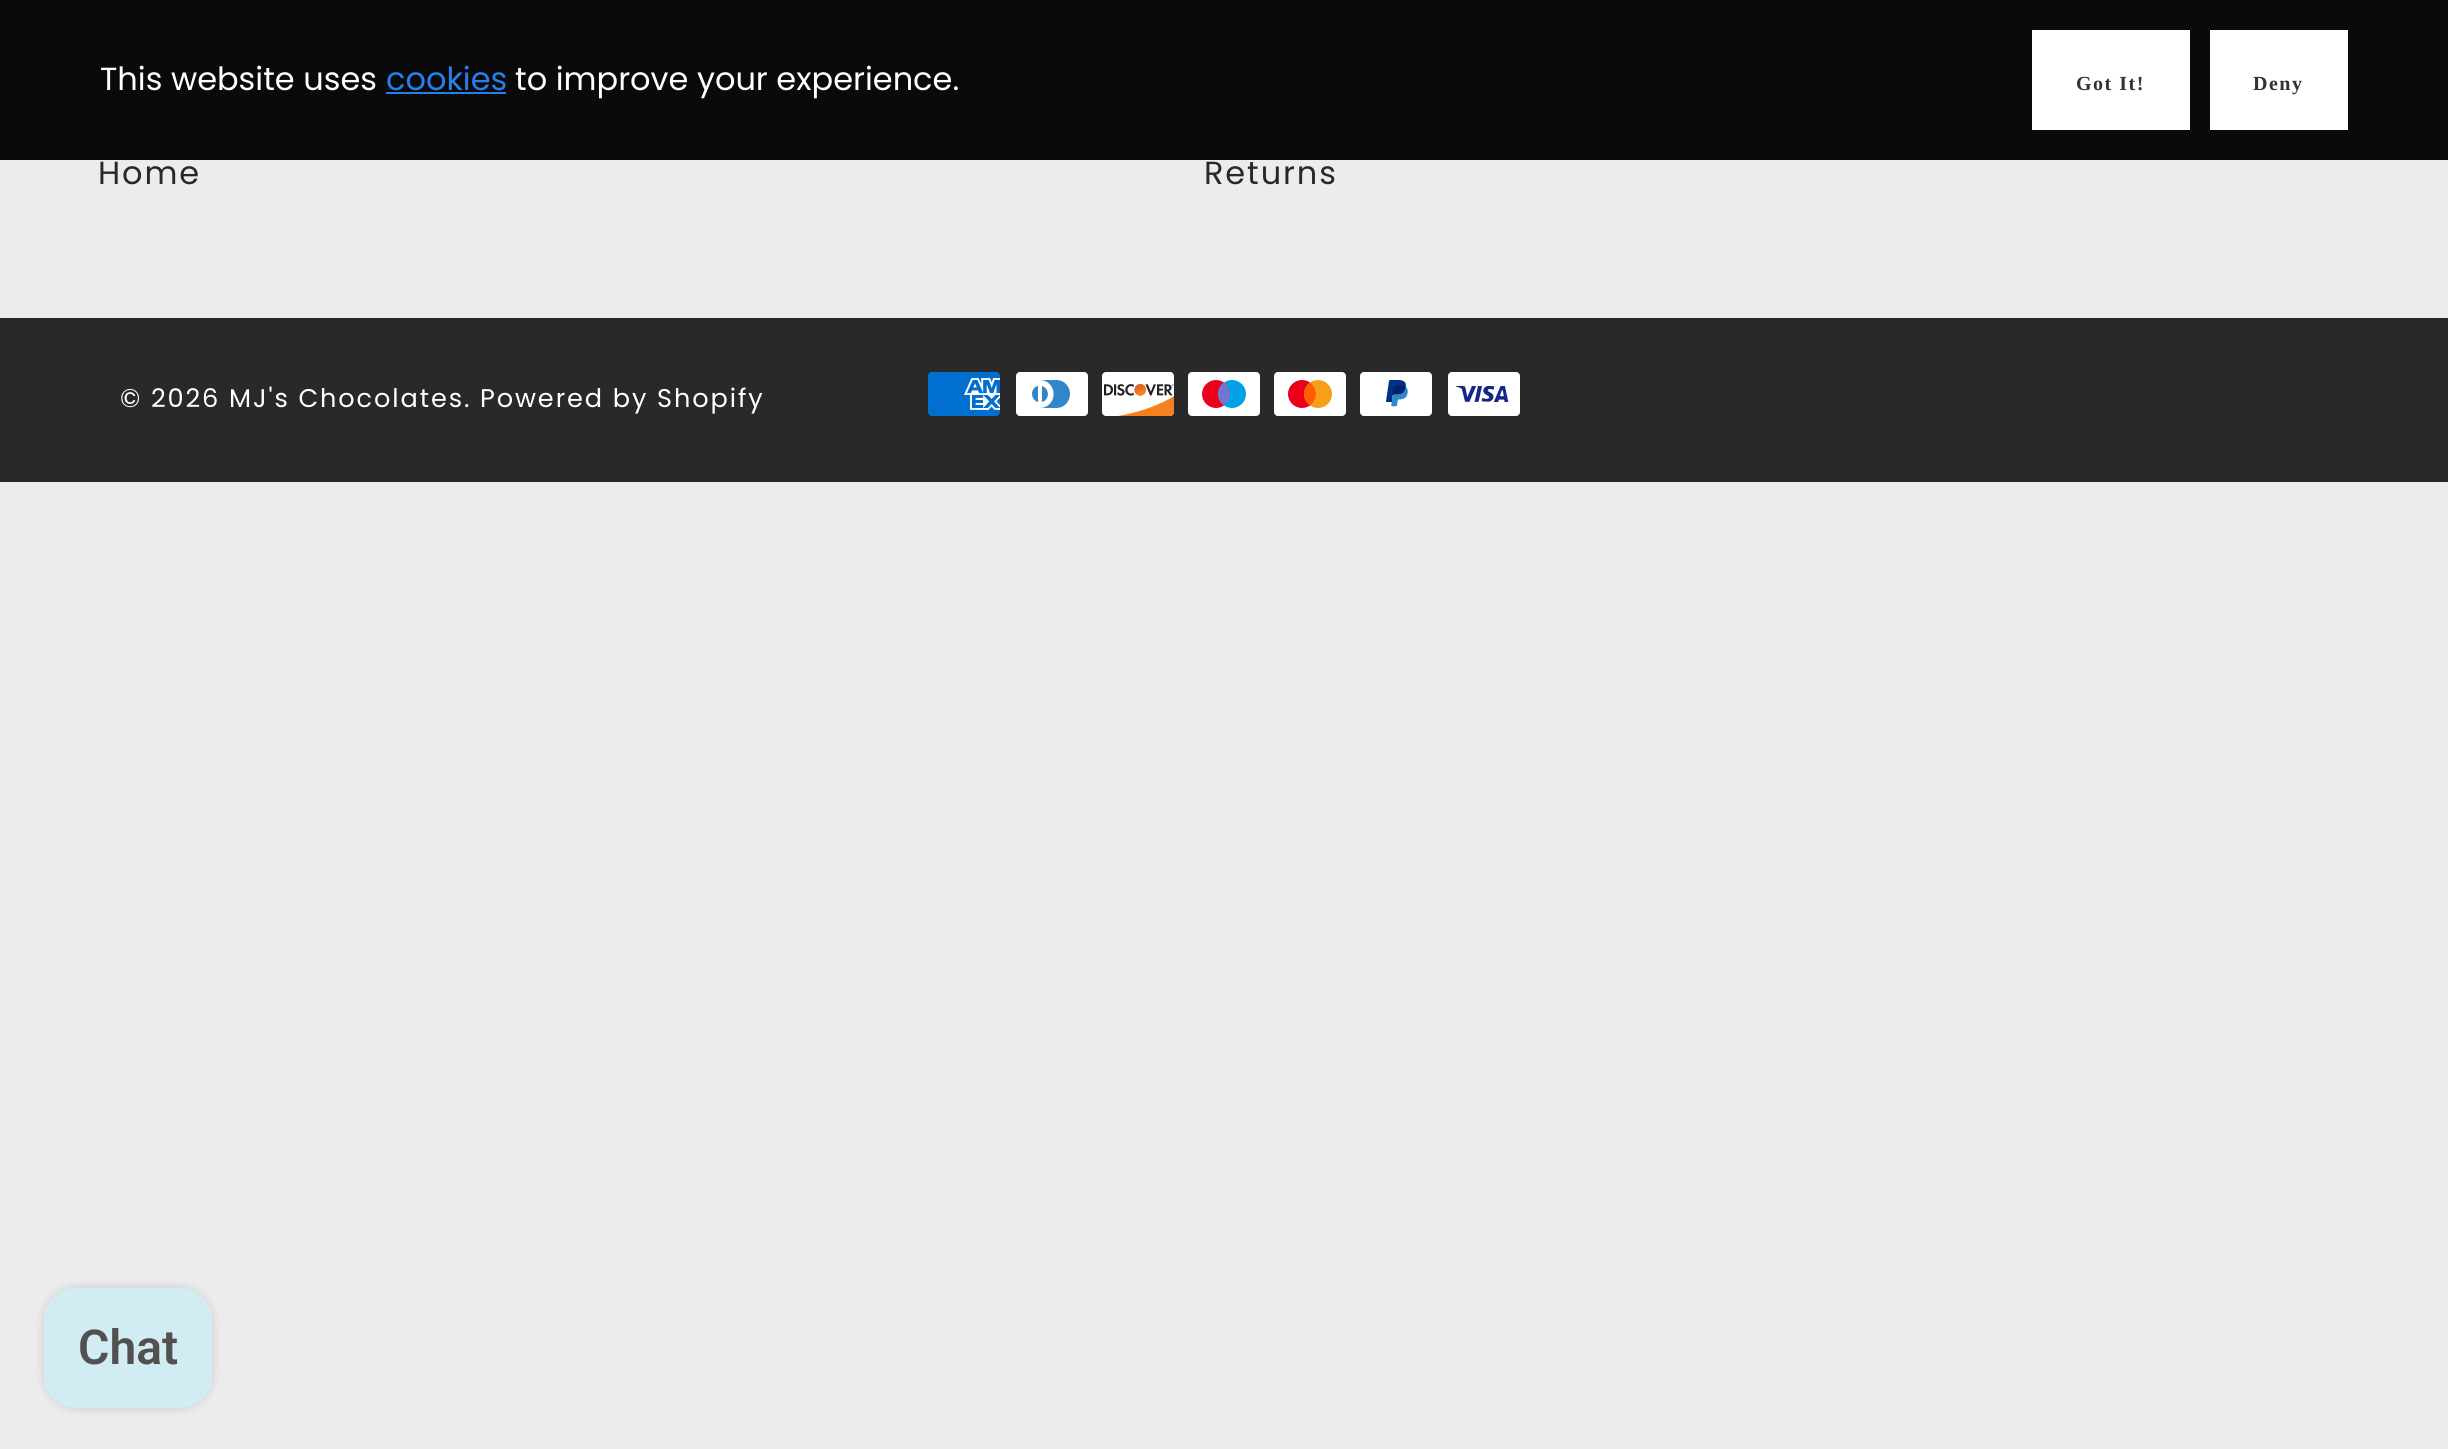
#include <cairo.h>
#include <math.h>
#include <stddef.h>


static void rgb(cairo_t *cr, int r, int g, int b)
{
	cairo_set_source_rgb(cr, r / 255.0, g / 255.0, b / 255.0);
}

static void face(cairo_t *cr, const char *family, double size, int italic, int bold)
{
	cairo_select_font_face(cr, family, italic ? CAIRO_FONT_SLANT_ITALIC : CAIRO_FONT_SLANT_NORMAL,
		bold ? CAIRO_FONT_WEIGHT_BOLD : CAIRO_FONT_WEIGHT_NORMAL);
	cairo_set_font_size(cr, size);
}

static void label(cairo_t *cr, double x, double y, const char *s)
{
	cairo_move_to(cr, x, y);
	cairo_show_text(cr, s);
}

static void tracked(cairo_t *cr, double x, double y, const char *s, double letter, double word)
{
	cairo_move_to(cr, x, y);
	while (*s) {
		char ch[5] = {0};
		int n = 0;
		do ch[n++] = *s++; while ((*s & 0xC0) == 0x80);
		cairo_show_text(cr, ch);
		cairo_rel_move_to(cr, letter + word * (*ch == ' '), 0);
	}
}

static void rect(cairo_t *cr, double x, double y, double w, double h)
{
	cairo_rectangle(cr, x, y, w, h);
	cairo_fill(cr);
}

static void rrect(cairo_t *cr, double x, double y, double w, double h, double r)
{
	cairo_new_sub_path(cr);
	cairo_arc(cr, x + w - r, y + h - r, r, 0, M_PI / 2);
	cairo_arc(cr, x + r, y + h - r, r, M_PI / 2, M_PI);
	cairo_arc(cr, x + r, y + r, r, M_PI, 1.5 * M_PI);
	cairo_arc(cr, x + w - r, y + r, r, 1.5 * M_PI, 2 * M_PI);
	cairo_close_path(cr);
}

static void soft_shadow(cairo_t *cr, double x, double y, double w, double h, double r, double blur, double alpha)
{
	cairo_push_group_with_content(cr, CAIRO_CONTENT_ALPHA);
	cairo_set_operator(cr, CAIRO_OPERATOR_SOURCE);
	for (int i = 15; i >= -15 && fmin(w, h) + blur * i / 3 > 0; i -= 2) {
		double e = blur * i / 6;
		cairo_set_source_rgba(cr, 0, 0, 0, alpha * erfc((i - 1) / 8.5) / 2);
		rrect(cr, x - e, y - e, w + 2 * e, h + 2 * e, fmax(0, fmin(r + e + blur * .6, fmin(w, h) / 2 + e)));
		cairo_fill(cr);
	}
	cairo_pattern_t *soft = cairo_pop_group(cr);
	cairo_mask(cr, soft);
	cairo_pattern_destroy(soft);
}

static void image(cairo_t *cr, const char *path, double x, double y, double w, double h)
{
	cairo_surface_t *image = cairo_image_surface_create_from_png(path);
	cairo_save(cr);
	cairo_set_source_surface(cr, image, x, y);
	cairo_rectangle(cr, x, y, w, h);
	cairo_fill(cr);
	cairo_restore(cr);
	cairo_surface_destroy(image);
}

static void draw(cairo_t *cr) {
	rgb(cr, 236, 236, 236);
	cairo_paint(cr);
	rgb(cr, 10, 10, 10);
	rect(cr, 0, 0, 2448, 160);
	face(cr, "Poppins", 32, 0, 0);
	rgb(cr, 255, 255, 255);
	label(cr, 100, 90, "This website uses");
	rgb(cr, 38, 128, 235);
	label(cr, 386, 90, "cookies");
	rect(cr, 386, 92, 120, 2);
	rgb(cr, 255, 255, 255);
	label(cr, 515, 90, "to improve your experience.");
	rect(cr, 2032, 30, 158, 100);
	face(cr, "Liberation Serif", 20, 0, 1);
	rgb(cr, 51, 51, 51);
	tracked(cr, 2076, 90, "Got It!", 1.5, 0);
	rgb(cr, 255, 255, 255);
	rect(cr, 2210, 30, 138, 100);
	rgb(cr, 51, 51, 51);
	tracked(cr, 2253, 90, "Deny", 1.5, 0);
	face(cr, "Poppins", 32, 0, 0);
	rgb(cr, 40, 40, 40);
	tracked(cr, 98, 184, "Home", 1.9, 0);
	tracked(cr, 1204, 184, "Returns", 1.9, 0);
	rgb(cr, 41, 41, 41);
	rect(cr, 0, 318, 2448, 164);
	face(cr, "Poppins", 25.6, 0, 0);
	rgb(cr, 255, 255, 255);
	tracked(cr, 120, 407, "© 2026 MJ's Chocolates. Powered by Shopify", 1.9, 0);
	image(cr, "image0.png", 928, 372, 72, 44);
	image(cr, "image1.png", 1016, 372, 72, 44);
	image(cr, "image2.png", 1102, 372, 73, 44);
	image(cr, "image3.png", 1188, 372, 72, 44);
	image(cr, "image4.png", 1274, 372, 72, 44);
	image(cr, "image5.png", 1360, 372, 72, 44);
	image(cr, "image6.png", 1448, 372, 72, 44);
	rgb(cr, 0, 0, 0);
	soft_shadow(cr, 44, 1288, 168, 120, 32, 5, 0.15);
	rgb(cr, 210, 236, 244);
	rrect(cr, 44, 1288, 168, 120, 32);
	cairo_fill(cr);
	face(cr, "Roboto SemiBold", 48, 0, 0);
	rgb(cr, 81, 81, 81);
	label(cr, 78, 1364, "Chat");
}

int main(void) {
	cairo_surface_t *surface = cairo_image_surface_create(CAIRO_FORMAT_RGB24, 2448, 1449);
	cairo_t *cr = cairo_create(surface);
	cairo_font_options_t *options = cairo_font_options_create();
	cairo_font_options_set_hint_metrics(options, CAIRO_HINT_METRICS_OFF);
	cairo_font_options_set_hint_style(options, CAIRO_HINT_STYLE_NONE);
	cairo_set_font_options(cr, options);
	cairo_set_miter_limit(cr, 4);
	draw(cr);
	cairo_surface_write_to_png(surface, "render.png");
	cairo_font_options_destroy(options);
	cairo_destroy(cr);
	cairo_surface_destroy(surface);
	return 0;
}
